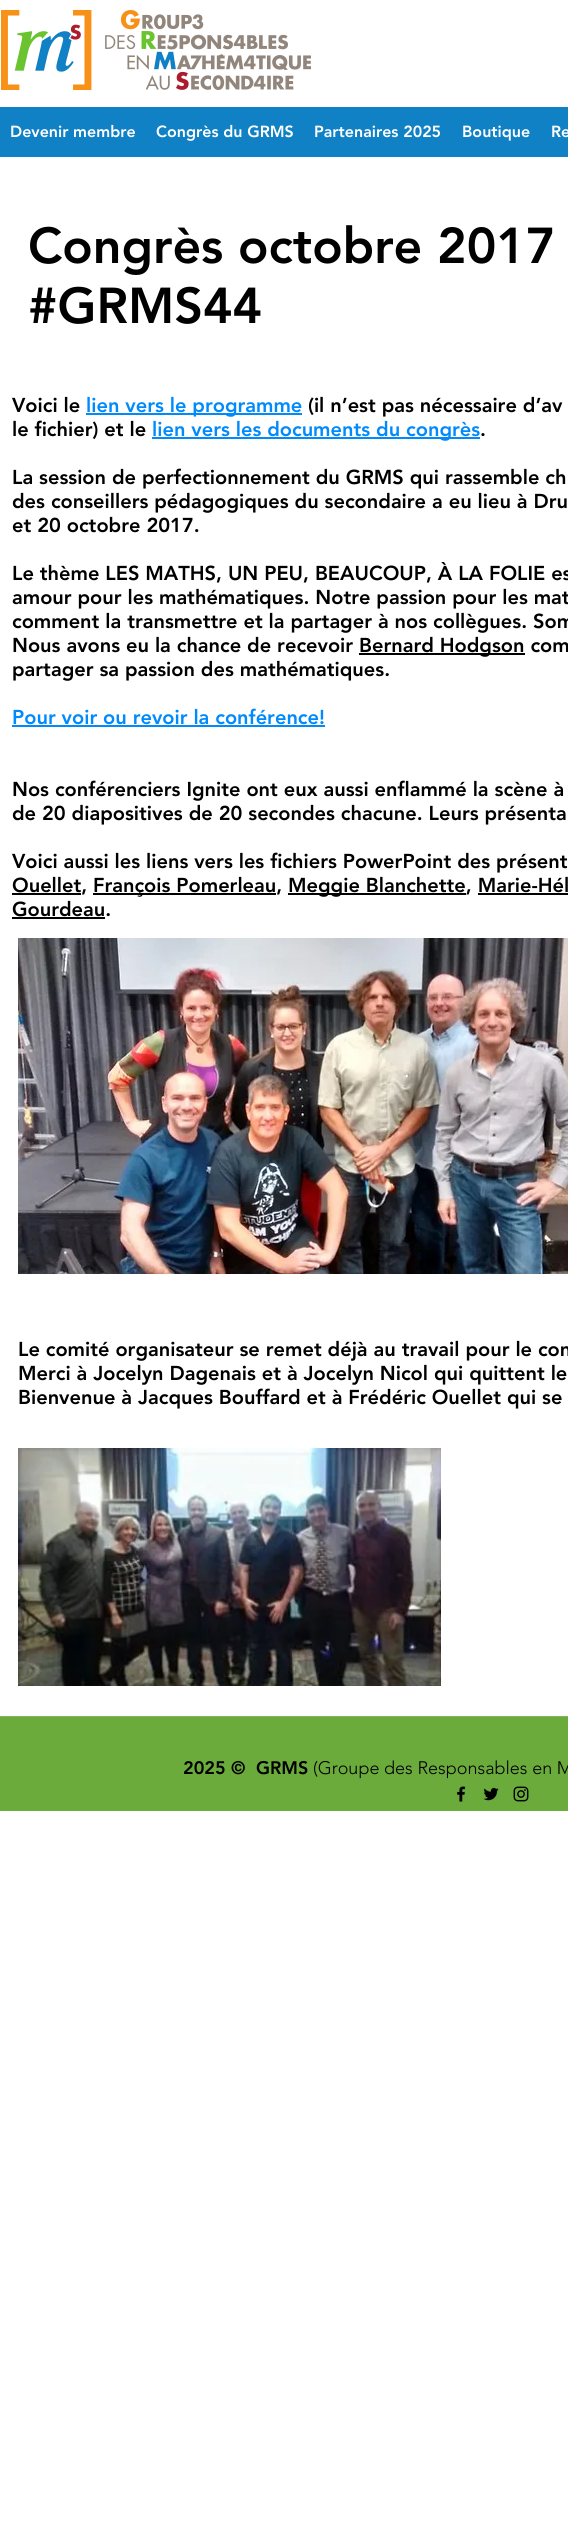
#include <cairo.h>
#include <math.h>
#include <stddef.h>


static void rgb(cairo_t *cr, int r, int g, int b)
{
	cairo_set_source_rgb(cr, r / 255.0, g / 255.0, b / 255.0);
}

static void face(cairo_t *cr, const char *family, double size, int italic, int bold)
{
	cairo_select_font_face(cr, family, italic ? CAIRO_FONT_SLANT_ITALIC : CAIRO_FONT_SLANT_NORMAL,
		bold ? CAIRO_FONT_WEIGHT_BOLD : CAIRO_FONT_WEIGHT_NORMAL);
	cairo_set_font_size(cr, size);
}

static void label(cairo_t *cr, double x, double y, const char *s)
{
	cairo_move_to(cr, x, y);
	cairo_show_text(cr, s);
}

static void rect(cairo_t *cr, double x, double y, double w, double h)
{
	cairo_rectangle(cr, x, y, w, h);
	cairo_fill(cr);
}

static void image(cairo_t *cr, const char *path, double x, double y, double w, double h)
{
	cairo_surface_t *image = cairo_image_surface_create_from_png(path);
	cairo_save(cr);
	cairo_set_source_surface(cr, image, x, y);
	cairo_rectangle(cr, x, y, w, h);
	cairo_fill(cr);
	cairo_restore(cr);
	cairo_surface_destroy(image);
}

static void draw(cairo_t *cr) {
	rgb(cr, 255, 255, 255);
	cairo_paint(cr);
	image(cr, "image0.png", 1, 10, 310, 80);
	rgb(cr, 16, 129, 197);
	rect(cr, 0, 107, 568, 50);
	face(cr, "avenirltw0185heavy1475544 Black", 16, 0, 0);
	rgb(cr, 255, 255, 255);
	label(cr, 10, 137, "Devenir membre");
	label(cr, 156, 137, "Congrès du GRMS");
	label(cr, 314, 137, "Partenaires 2025");
	label(cr, 462, 137, "Boutique");
	label(cr, 551, 137, "Re");
	face(cr, "avenirltw0185heavy1475544 Black", 50, 0, 0);
	rgb(cr, 0, 0, 0);
	label(cr, 28, 263, "Congrès octobre 2017");
	label(cr, 28, 323, "#GRMS44");
	face(cr, "avenirltw0185heavy1475544 Black", 20, 0, 0);
	label(cr, 12, 412, "Voici le");
	rgb(cr, 0, 138, 252);
	rect(cr, 86, 413, 216, 2);
	label(cr, 86, 412, "lien vers le programme");
	rgb(cr, 0, 0, 0);
	label(cr, 308, 412, "(il n’est pas nécessaire d’av");
	label(cr, 12, 436, "le fichier) et le");
	rgb(cr, 0, 138, 252);
	rect(cr, 152, 437, 328, 2);
	label(cr, 152, 436, "lien vers les documents du congrès");
	rgb(cr, 0, 0, 0);
	label(cr, 480, 436, ".");
	label(cr, 12, 484, "La session de perfectionnement du GRMS qui rassemble ch");
	label(cr, 12, 508, "des conseillers pédagogiques du secondaire a eu lieu à Dru");
	label(cr, 12, 532, "et 20 octobre 2017.");
	label(cr, 12, 580, "Le thème LES MATHS, UN PEU, BEAUCOUP, À LA FOLIE es");
	label(cr, 12, 604, "amour pour les mathématiques. Notre passion pour les mat");
	label(cr, 12, 628, "comment la transmettre et la partager à nos collègues. Som");
	label(cr, 12, 652, "Nous avons eu la chance de recevoir");
	rect(cr, 359, 653, 166, 2);
	label(cr, 359, 652, "Bernard Hodgson com");
	label(cr, 12, 676, "partager sa passion des mathématiques.");
	rgb(cr, 0, 138, 252);
	label(cr, 12, 724, "Pour voir ou revoir la conférence!");
	rect(cr, 12, 725, 313, 2);
	rgb(cr, 0, 0, 0);
	label(cr, 12, 796, "Nos conférenciers Ignite ont eux aussi enflammé la scène à");
	label(cr, 12, 820, "de 20 diapositives de 20 secondes chacune. Leurs présenta");
	label(cr, 12, 868, "Voici aussi les liens vers les fichiers PowerPoint des présent");
	rect(cr, 12, 893, 69, 2);
	label(cr, 12, 892, "Ouellet,");
	rect(cr, 93, 893, 183, 2);
	label(cr, 93, 892, "François Pomerleau,");
	rect(cr, 288, 893, 178, 2);
	label(cr, 288, 892, "Meggie Blanchette, Marie-Hél");
	rect(cr, 478, 893, 90, 2);
	label(cr, 12, 916, "Gourdeau.");
	rect(cr, 12, 917, 93, 2);
	image(cr, "image1.png", 18, 938, 550, 336);
	label(cr, 18, 1356, "Le comité organisateur se remet déjà au travail pour le con");
	label(cr, 18, 1380, "Merci à Jocelyn Dagenais et à Jocelyn Nicol qui quittent le");
	label(cr, 18, 1404, "Bienvenue à Jacques Bouffard et à Frédéric Ouellet qui se");
	image(cr, "image2.png", 18, 1448, 423, 238);
	rgb(cr, 106, 171, 60);
	rect(cr, 0, 1717, 568, 94);
	rgb(cr, 128, 184, 89);
	rect(cr, 0, 1716, 568, 1);
	face(cr, "avenirltw0185heavy1475544 Black", 18, 0, 0);
	rgb(cr, 0, 0, 0);
	label(cr, 183, 1774, "2025 ©  GRMS");
	face(cr, "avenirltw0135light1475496 Light", 18, 0, 0);
	label(cr, 313, 1774, "(Groupe des Responsables en M");
	image(cr, "image3.png", 457, 1786, 9, 16);
	image(cr, "image4.png", 483, 1787, 16, 14);
	image(cr, "image5.png", 513, 1786, 16, 16);
}

int main(void) {
	cairo_surface_t *surface = cairo_image_surface_create(CAIRO_FORMAT_RGB24, 568, 2526);
	cairo_t *cr = cairo_create(surface);
	cairo_font_options_t *options = cairo_font_options_create();
	cairo_font_options_set_hint_metrics(options, CAIRO_HINT_METRICS_OFF);
	cairo_font_options_set_hint_style(options, CAIRO_HINT_STYLE_NONE);
	cairo_set_font_options(cr, options);
	cairo_set_miter_limit(cr, 4);
	draw(cr);
	cairo_surface_write_to_png(surface, "render.png");
	cairo_font_options_destroy(options);
	cairo_destroy(cr);
	cairo_surface_destroy(surface);
	return 0;
}
